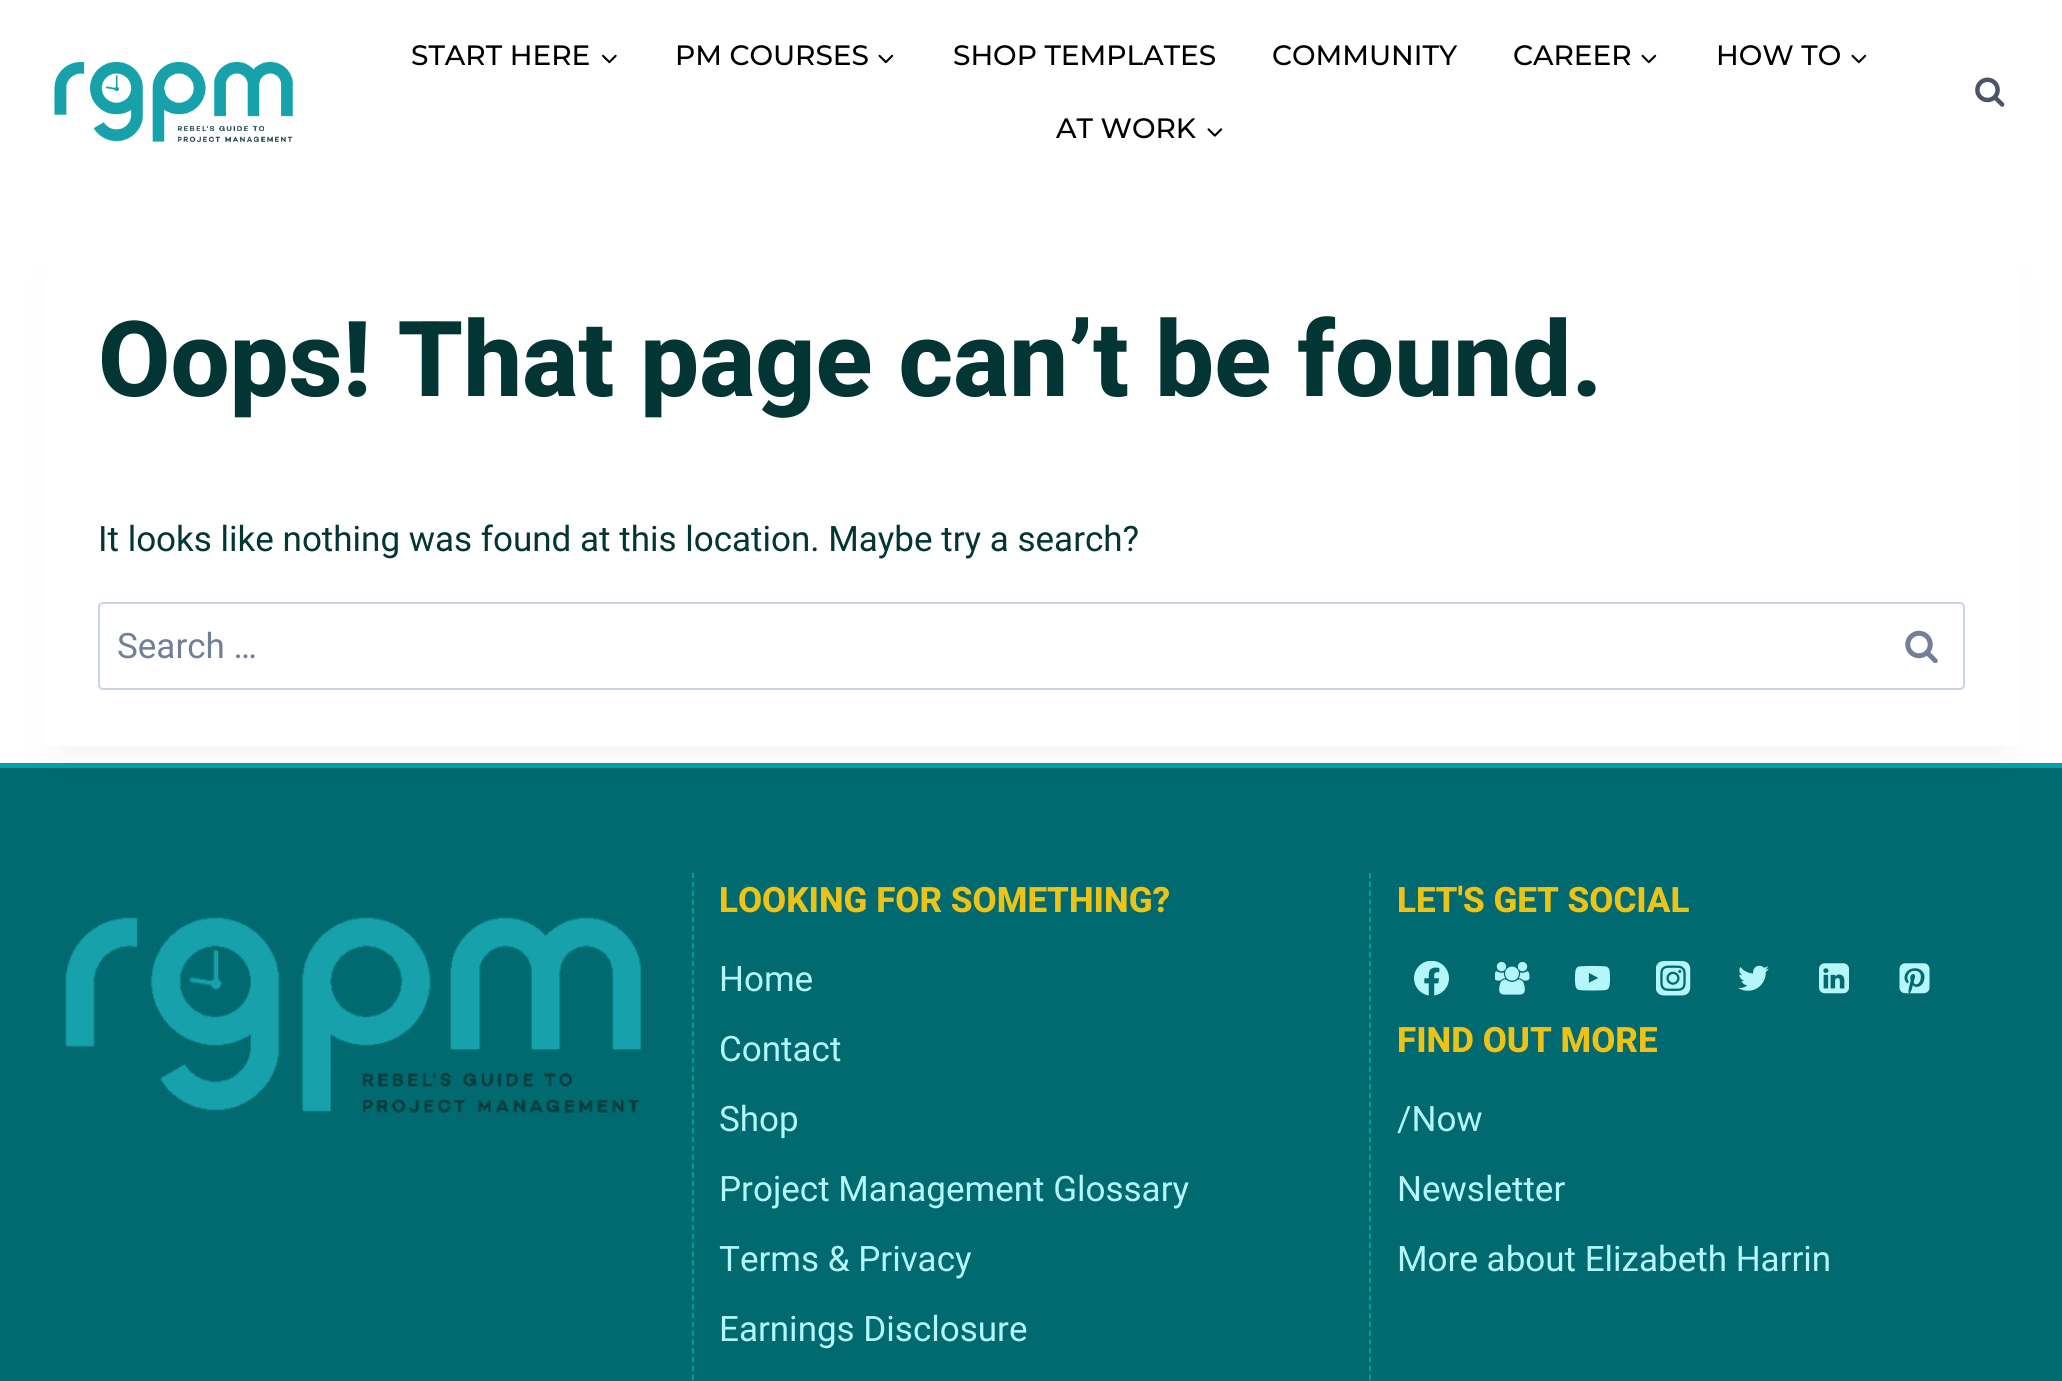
#include <cairo.h>
#include <math.h>
#include <stddef.h>


static void rgb(cairo_t *cr, int r, int g, int b)
{
	cairo_set_source_rgb(cr, r / 255.0, g / 255.0, b / 255.0);
}

static void face(cairo_t *cr, const char *family, double size, int italic, int bold)
{
	cairo_select_font_face(cr, family, italic ? CAIRO_FONT_SLANT_ITALIC : CAIRO_FONT_SLANT_NORMAL,
		bold ? CAIRO_FONT_WEIGHT_BOLD : CAIRO_FONT_WEIGHT_NORMAL);
	cairo_set_font_size(cr, size);
}

static void label(cairo_t *cr, double x, double y, const char *s)
{
	cairo_move_to(cr, x, y);
	cairo_show_text(cr, s);
}

static void rect(cairo_t *cr, double x, double y, double w, double h)
{
	cairo_rectangle(cr, x, y, w, h);
	cairo_fill(cr);
}

static void rrect(cairo_t *cr, double x, double y, double w, double h, double r)
{
	cairo_new_sub_path(cr);
	cairo_arc(cr, x + w - r, y + h - r, r, 0, M_PI / 2);
	cairo_arc(cr, x + r, y + h - r, r, M_PI / 2, M_PI);
	cairo_arc(cr, x + r, y + r, r, M_PI, 1.5 * M_PI);
	cairo_arc(cr, x + w - r, y + r, r, 1.5 * M_PI, 2 * M_PI);
	cairo_close_path(cr);
}

static void soft_shadow(cairo_t *cr, double x, double y, double w, double h, double r, double blur, double alpha)
{
	cairo_push_group_with_content(cr, CAIRO_CONTENT_ALPHA);
	cairo_set_operator(cr, CAIRO_OPERATOR_SOURCE);
	for (int i = 15; i >= -15 && fmin(w, h) + blur * i / 3 > 0; i -= 2) {
		double e = blur * i / 6;
		cairo_set_source_rgba(cr, 0, 0, 0, alpha * erfc((i - 1) / 8.5) / 2);
		rrect(cr, x - e, y - e, w + 2 * e, h + 2 * e, fmax(0, fmin(r + e + blur * .6, fmin(w, h) / 2 + e)));
		cairo_fill(cr);
	}
	cairo_pattern_t *soft = cairo_pop_group(cr);
	cairo_mask(cr, soft);
	cairo_pattern_destroy(soft);
}

static void image(cairo_t *cr, const char *path, double x, double y, double w, double h)
{
	cairo_surface_t *image = cairo_image_surface_create_from_png(path);
	cairo_save(cr);
	cairo_set_source_surface(cr, image, x, y);
	cairo_rectangle(cr, x, y, w, h);
	cairo_fill(cr);
	cairo_restore(cr);
	cairo_surface_destroy(image);
}

static void draw(cairo_t *cr) {
	rgb(cr, 255, 255, 255);
	cairo_paint(cr);
	image(cr, "image0.png", 54, 61, 240, 81);
	face(cr, "Montserrat Medium", 28, 0, 0);
	rgb(cr, 0, 0, 0);
	label(cr, 411, 65, "START HERE");
	image(cr, "image1.png", 602, 54, 15, 10);
	label(cr, 675, 65, "PM COURSES");
	image(cr, "image2.png", 878, 54, 16, 10);
	label(cr, 953, 65, "SHOP TEMPLATES");
	label(cr, 1272, 65, "COMMUNITY");
	label(cr, 1513, 65, "CAREER");
	image(cr, "image2.png", 1641, 54, 16, 10);
	label(cr, 1716, 65, "HOW TO");
	image(cr, "image2.png", 1851, 54, 16, 10);
	label(cr, 1056, 138, "AT WORK");
	image(cr, "image3.png", 1207, 128, 16, 9);
	image(cr, "image4.png", 1975, 77, 30, 30);
	rgb(cr, 0, 106, 112);
	rect(cr, 0, 768, 2062, 613);
	rgb(cr, 0, 161, 171);
	rect(cr, 0, 763, 2062, 5);
	rgb(cr, 0, 0, 0);
	soft_shadow(cr, 60, 285, 1944, 469, 0, 22, 0.05);
	rgb(cr, 255, 255, 255);
	rrect(cr, 42, 242, 1979, 504, 7);
	cairo_fill(cr);
	face(cr, "Roboto ExtraBold", 105, 0, 0);
	rgb(cr, 3, 53, 53);
	label(cr, 98, 396, "Oops! That page can’t be found.");
	face(cr, "Roboto", 35, 0, 0);
	label(cr, 98, 551, "It looks like nothing was found at this location. Maybe try a search?");
	rrect(cr, 99, 603, 1865, 86, 4);
	rgb(cr, 203, 213, 224);
	cairo_stroke(cr);
	rgb(cr, 113, 128, 150);
	label(cr, 117, 658, "Search …");
	image(cr, "image5.png", 1905, 630, 33, 33);
	image(cr, "image6.png", 65, 917, 577, 196);
	cairo_new_path(cr);
	cairo_move_to(cr, 693, 873);
	cairo_line_to(cr, 693, 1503);
	rgb(cr, 0, 161, 171);
	cairo_set_line_width(cr, 1.8);
	cairo_set_dash(cr, (double[]){5.25, 3.55}, 2, 0);
	cairo_stroke(cr);
	face(cr, "Roboto ExtraBold", 35, 0, 0);
	rgb(cr, 237, 195, 23);
	label(cr, 719, 912, "LOOKING FOR SOMETHING?");
	face(cr, "Roboto", 35, 0, 0);
	rgb(cr, 180, 246, 250);
	label(cr, 719, 991, "Home");
	label(cr, 719, 1061, "Contact");
	label(cr, 719, 1131, "Shop");
	label(cr, 719, 1201, "Project Management Glossary");
	label(cr, 719, 1271, "Terms & Privacy");
	label(cr, 719, 1341, "Earnings Disclosure");
	cairo_new_path(cr);
	cairo_move_to(cr, 1370, 873);
	cairo_line_to(cr, 1370, 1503);
	rgb(cr, 0, 161, 171);
	cairo_stroke(cr);
	face(cr, "Roboto ExtraBold", 35, 0, 0);
	rgb(cr, 237, 195, 23);
	label(cr, 1397, 912, "LET'S GET SOCIAL");
	image(cr, "image7.png", 1414, 961, 35, 35);
	image(cr, "image8.png", 1495, 961, 35, 34);
	image(cr, "image9.png", 1575, 965, 35, 26);
	image(cr, "image10.png", 1656, 961, 35, 35);
	image(cr, "image11.png", 1738, 965, 31, 26);
	image(cr, "image12.png", 1819, 963, 30, 31);
	image(cr, "image13.png", 1899, 963, 31, 31);
	label(cr, 1397, 1052, "FIND OUT MORE");
	face(cr, "Roboto", 35, 0, 0);
	rgb(cr, 180, 246, 250);
	label(cr, 1397, 1131, "/Now");
	label(cr, 1397, 1201, "Newsletter");
	label(cr, 1397, 1271, "More about Elizabeth Harrin");
}

int main(void) {
	cairo_surface_t *surface = cairo_image_surface_create(CAIRO_FORMAT_RGB24, 2062, 1381);
	cairo_t *cr = cairo_create(surface);
	cairo_font_options_t *options = cairo_font_options_create();
	cairo_font_options_set_hint_metrics(options, CAIRO_HINT_METRICS_OFF);
	cairo_font_options_set_hint_style(options, CAIRO_HINT_STYLE_NONE);
	cairo_set_font_options(cr, options);
	cairo_set_miter_limit(cr, 4);
	draw(cr);
	cairo_surface_write_to_png(surface, "render.png");
	cairo_font_options_destroy(options);
	cairo_destroy(cr);
	cairo_surface_destroy(surface);
	return 0;
}
